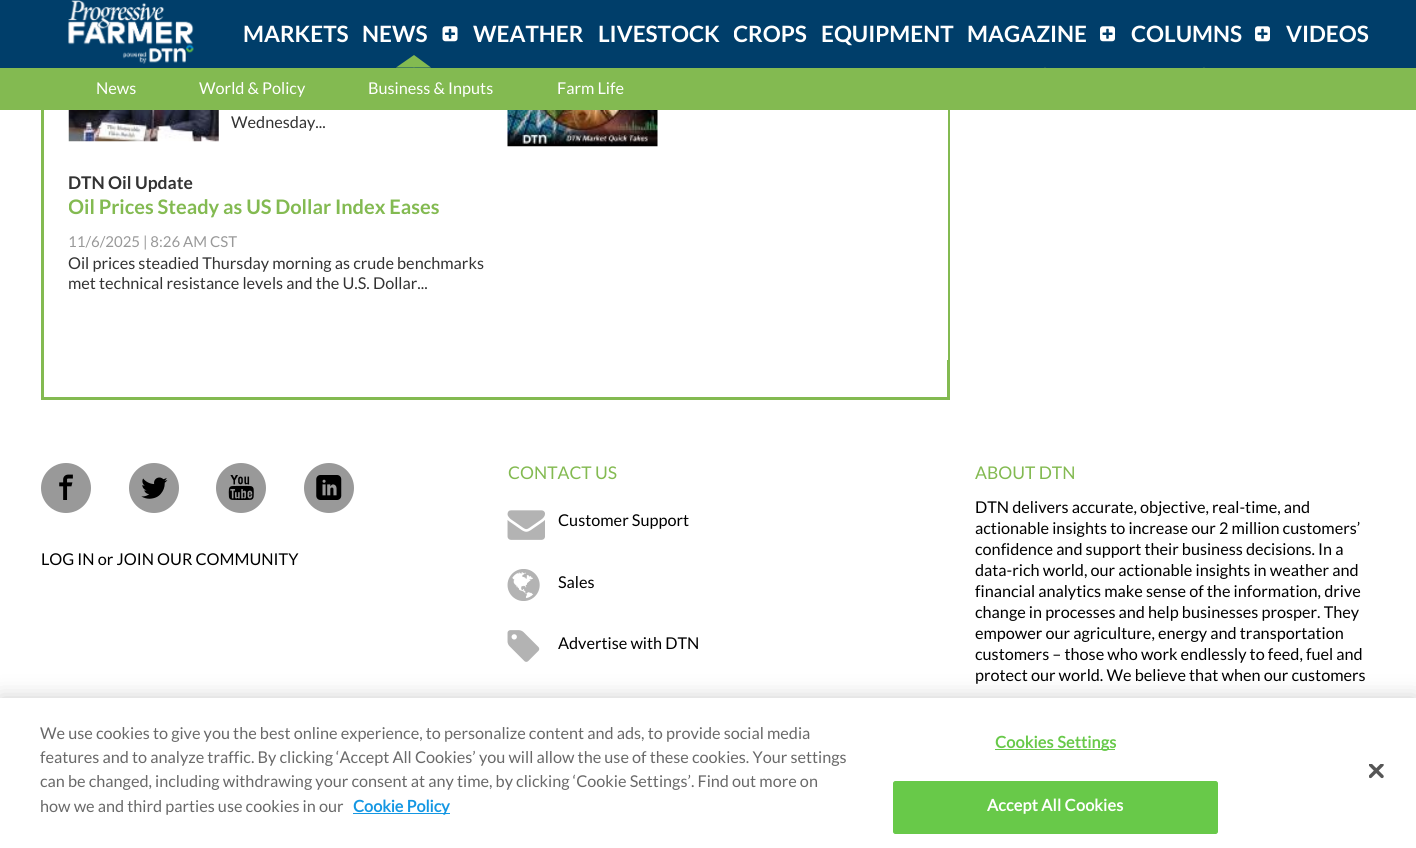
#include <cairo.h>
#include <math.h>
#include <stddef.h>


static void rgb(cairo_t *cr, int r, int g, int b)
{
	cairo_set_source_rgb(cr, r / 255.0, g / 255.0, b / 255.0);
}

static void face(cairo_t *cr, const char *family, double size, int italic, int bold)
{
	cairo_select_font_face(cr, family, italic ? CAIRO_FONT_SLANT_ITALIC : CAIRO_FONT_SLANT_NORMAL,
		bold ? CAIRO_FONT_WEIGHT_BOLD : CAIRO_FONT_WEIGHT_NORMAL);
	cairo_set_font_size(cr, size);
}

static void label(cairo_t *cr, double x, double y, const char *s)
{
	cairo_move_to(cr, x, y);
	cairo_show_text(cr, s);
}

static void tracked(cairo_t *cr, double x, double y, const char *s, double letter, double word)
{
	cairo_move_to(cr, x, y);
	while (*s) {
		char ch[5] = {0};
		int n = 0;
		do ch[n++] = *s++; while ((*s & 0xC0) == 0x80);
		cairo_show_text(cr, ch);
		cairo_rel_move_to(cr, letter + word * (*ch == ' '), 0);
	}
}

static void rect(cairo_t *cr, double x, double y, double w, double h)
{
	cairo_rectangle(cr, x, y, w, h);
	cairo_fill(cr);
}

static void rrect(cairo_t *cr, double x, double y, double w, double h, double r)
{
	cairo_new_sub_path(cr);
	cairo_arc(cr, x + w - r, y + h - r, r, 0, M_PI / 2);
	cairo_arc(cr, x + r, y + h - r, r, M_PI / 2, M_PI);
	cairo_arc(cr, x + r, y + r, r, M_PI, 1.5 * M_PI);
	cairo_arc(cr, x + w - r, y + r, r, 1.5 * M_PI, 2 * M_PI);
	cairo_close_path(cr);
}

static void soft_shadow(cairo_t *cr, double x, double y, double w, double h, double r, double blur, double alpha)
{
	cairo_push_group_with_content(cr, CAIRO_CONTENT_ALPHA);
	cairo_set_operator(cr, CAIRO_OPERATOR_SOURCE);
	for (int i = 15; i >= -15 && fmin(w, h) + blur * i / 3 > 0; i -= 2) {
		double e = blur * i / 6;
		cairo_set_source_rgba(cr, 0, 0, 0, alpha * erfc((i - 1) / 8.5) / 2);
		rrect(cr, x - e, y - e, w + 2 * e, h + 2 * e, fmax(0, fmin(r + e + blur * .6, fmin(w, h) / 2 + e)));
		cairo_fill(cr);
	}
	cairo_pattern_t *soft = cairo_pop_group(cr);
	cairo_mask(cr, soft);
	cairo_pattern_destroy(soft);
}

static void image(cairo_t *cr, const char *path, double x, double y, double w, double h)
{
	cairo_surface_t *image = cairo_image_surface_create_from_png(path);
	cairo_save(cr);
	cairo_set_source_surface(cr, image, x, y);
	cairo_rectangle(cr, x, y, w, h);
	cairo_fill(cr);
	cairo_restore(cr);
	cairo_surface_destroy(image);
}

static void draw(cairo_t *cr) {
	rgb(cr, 255, 255, 255);
	cairo_paint(cr);
	cairo_rectangle(cr, 42.5, -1.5, 906, 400);
	rgb(cr, 131, 186, 81);
	cairo_set_line_width(cr, 3);
	cairo_stroke(cr);
	rgb(cr, 0, 62, 106);
	rect(cr, 0, 0, 1416, 68);
	image(cr, "image0.png", 68, 0, 126, 64);
	face(cr, "Lato", 22.5, 0, 1);
	rgb(cr, 255, 255, 255);
	label(cr, 243, 42, "MARKETS");
	label(cr, 362, 42, "NEWS");
	rgb(cr, 131, 186, 81);
	cairo_new_path(cr);
	cairo_move_to(cr, 431, 67.5);
	cairo_line_to(cr, 396, 67.5);
	cairo_line_to(cr, 414, 55);
	cairo_close_path(cr);
	cairo_fill(cr);
	image(cr, "image1.png", 442, 26, 16, 16);
	cairo_save(cr);
	cairo_rectangle(cr, 343, 55, 136, 13);
	cairo_clip(cr);
	cairo_new_path(cr);
	cairo_move_to(cr, 431, 80);
	cairo_line_to(cr, 396, 80);
	cairo_line_to(cr, 414, 67.5);
	cairo_close_path(cr);
	cairo_fill(cr);
	cairo_restore(cr);
	rgb(cr, 255, 255, 255);
	label(cr, 473, 42, "WEATHER");
	label(cr, 598, 42, "LIVESTOCK");
	cairo_save(cr);
	cairo_rectangle(cr, 734, 0, 74, 68);
	cairo_clip(cr);
	label(cr, 733, 42, "CROPS");
	cairo_restore(cr);
	label(cr, 821, 42, "EQUIPMENT");
	label(cr, 967, 42, "MAGAZINE");
	image(cr, "image2.png", 1100, 26, 15, 16);
	cairo_save(cr);
	cairo_rectangle(cr, 948, 55, 188, 13);
	cairo_clip(cr);
	rgb(cr, 131, 186, 81);
	cairo_new_path(cr);
	cairo_move_to(cr, 1062.5, 80);
	cairo_line_to(cr, 1027.5, 80);
	cairo_line_to(cr, 1045, 67.5);
	cairo_close_path(cr);
	cairo_fill(cr);
	cairo_restore(cr);
	label(cr, 1131, 42, "COLUMNS");
	image(cr, "image2.png", 1255, 26, 15, 16);
	cairo_save(cr);
	cairo_rectangle(cr, 1111, 55, 180, 13);
	cairo_clip(cr);
	rgb(cr, 131, 186, 81);
	cairo_new_path(cr);
	cairo_move_to(cr, 1221, 80);
	cairo_line_to(cr, 1186, 80);
	cairo_line_to(cr, 1204, 67.5);
	cairo_close_path(cr);
	cairo_fill(cr);
	cairo_restore(cr);
	label(cr, 1286, 42, "VIDEOS");
	rgb(cr, 131, 186, 81);
	rect(cr, 0, 68, 1416, 42);
	face(cr, "Lato", 16.25, 0, 0);
	rgb(cr, 255, 255, 255);
	label(cr, 96, 94, "News");
	label(cr, 199, 94, "World & Policy");
	label(cr, 368, 94, "Business & Inputs");
	label(cr, 557, 94, "Farm Life");
	rect(cr, 947, 110, 1, 250);
	image(cr, "image3.png", 68, 110, 151, 32);
	rgb(cr, 51, 51, 51);
	label(cr, 231, 128, "Wednesday...");
	image(cr, "image4.png", 507, 110, 151, 37);
	face(cr, "Lato", 17.5, 0, 1);
	label(cr, 68, 189, "DTN Oil Update");
	cairo_save(cr);
	cairo_rectangle(cr, 69, 194, 426, 26);
	cairo_clip(cr);
	face(cr, "Lato", 20, 0, 1);
	rgb(cr, 131, 186, 81);
	label(cr, 68, 214, "Oil Prices Steady as US Dollar Index Eases");
	cairo_restore(cr);
	face(cr, "Lato", 15, 0, 0);
	rgb(cr, 153, 153, 153);
	label(cr, 68, 247, "11/6/2025 | 8:26 AM CST");
	face(cr, "Lato", 16.25, 0, 0);
	rgb(cr, 51, 51, 51);
	label(cr, 68, 269, "Oil prices steadied Thursday morning as crude benchmarks");
	label(cr, 68, 289, "met technical resistance levels and the U.S. Dollar...");
	rgb(cr, 153, 153, 153);
	cairo_new_path(cr);
	cairo_arc(cr, 66, 488, 25, 0, 2 * M_PI);
	cairo_fill(cr);
	image(cr, "image5.png", 59, 474, 14, 26);
	cairo_arc(cr, 154, 488, 25, 0, 2 * M_PI);
	cairo_fill(cr);
	image(cr, "image6.png", 141, 477, 27, 22);
	cairo_arc(cr, 241, 488, 25, 0, 2 * M_PI);
	cairo_fill(cr);
	image(cr, "image7.png", 228, 475, 26, 25);
	cairo_arc(cr, 329, 488, 25, 0, 2 * M_PI);
	cairo_fill(cr);
	image(cr, "image8.png", 316, 475, 26, 25);
	rgb(cr, 0, 0, 0);
	label(cr, 41, 565, "LOG IN or JOIN OUR COMMUNITY");
	face(cr, "Lato", 17.5, 0, 0);
	rgb(cr, 131, 186, 81);
	label(cr, 508, 479, "CONTACT US");
	image(cr, "image9.png", 507, 510, 38, 30);
	face(cr, "Lato", 16.25, 0, 0);
	rgb(cr, 0, 0, 0);
	label(cr, 558, 526, "Customer Support");
	image(cr, "image10.png", 507, 569, 33, 32);
	label(cr, 558, 588, "Sales");
	image(cr, "image11.png", 507, 630, 33, 32);
	label(cr, 558, 649, "Advertise with DTN");
	face(cr, "Lato", 17.5, 0, 0);
	rgb(cr, 131, 186, 81);
	label(cr, 975, 479, "ABOUT DTN");
	face(cr, "Lato", 16.25, 0, 0);
	rgb(cr, 0, 0, 0);
	label(cr, 975, 513, "DTN delivers accurate, objective, real-time, and");
	label(cr, 975, 534, "actionable insights to increase our 2 million customers’");
	label(cr, 975, 555, "confidence and support their business decisions. In a");
	label(cr, 975, 576, "data-rich world, our actionable insights in weather and");
	label(cr, 975, 597, "financial analytics make sense of the information, drive");
	label(cr, 975, 618, "change in processes and help businesses prosper. They");
	label(cr, 975, 639, "empower our agriculture, energy and transportation");
	label(cr, 975, 660, "customers – those who work endlessly to feed, fuel and");
	label(cr, 975, 681, "protect our world. We believe that when our customers");
	rgb(cr, 0, 0, 0);
	soft_shadow(cr, 0, 698, 1416, 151, 0, 11, 0.2);
	rgb(cr, 255, 255, 255);
	rect(cr, 0, 698, 1416, 150);
	rgb(cr, 105, 105, 105);
	label(cr, 40, 739, "We use cookies to give you the best online experience, to personalize content and ads, to provide social media");
	label(cr, 40, 763, "features and to analyze traffic. By clicking ‘Accept All Cookies’ you will allow the use of these cookies. Your settings");
	label(cr, 40, 787, "can be changed, including withdrawing your consent at any time, by clicking ‘Cookie Settings’. Find out more on");
	label(cr, 40, 812, "how we and third parties use cookies in our");
	rgb(cr, 20, 151, 227);
	rect(cr, 353, 813, 97, 1);
	face(cr, "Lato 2", 16.25, 0, 1);
	label(cr, 353, 812, "Cookie Policy");
	rgb(cr, 104, 201, 73);
	rect(cr, 995, 749, 120, 1);
	tracked(cr, 995, 748, "Cookies Settings", 0.2, 0);
	rrect(cr, 893.5, 781.5, 324, 52, 2);
	cairo_fill_preserve(cr);
	cairo_set_line_width(cr, 1);
	cairo_stroke(cr);
	rgb(cr, 255, 255, 255);
	tracked(cr, 987, 811, "Accept All Cookies", 0.2, 0);
	image(cr, "image12.png", 1369, 764, 15, 15);
}

int main(void) {
	cairo_surface_t *surface = cairo_image_surface_create(CAIRO_FORMAT_RGB24, 1416, 848);
	cairo_t *cr = cairo_create(surface);
	cairo_font_options_t *options = cairo_font_options_create();
	cairo_font_options_set_hint_metrics(options, CAIRO_HINT_METRICS_OFF);
	cairo_font_options_set_hint_style(options, CAIRO_HINT_STYLE_NONE);
	cairo_set_font_options(cr, options);
	cairo_set_miter_limit(cr, 4);
	draw(cr);
	cairo_surface_write_to_png(surface, "render.png");
	cairo_font_options_destroy(options);
	cairo_destroy(cr);
	cairo_surface_destroy(surface);
	return 0;
}
